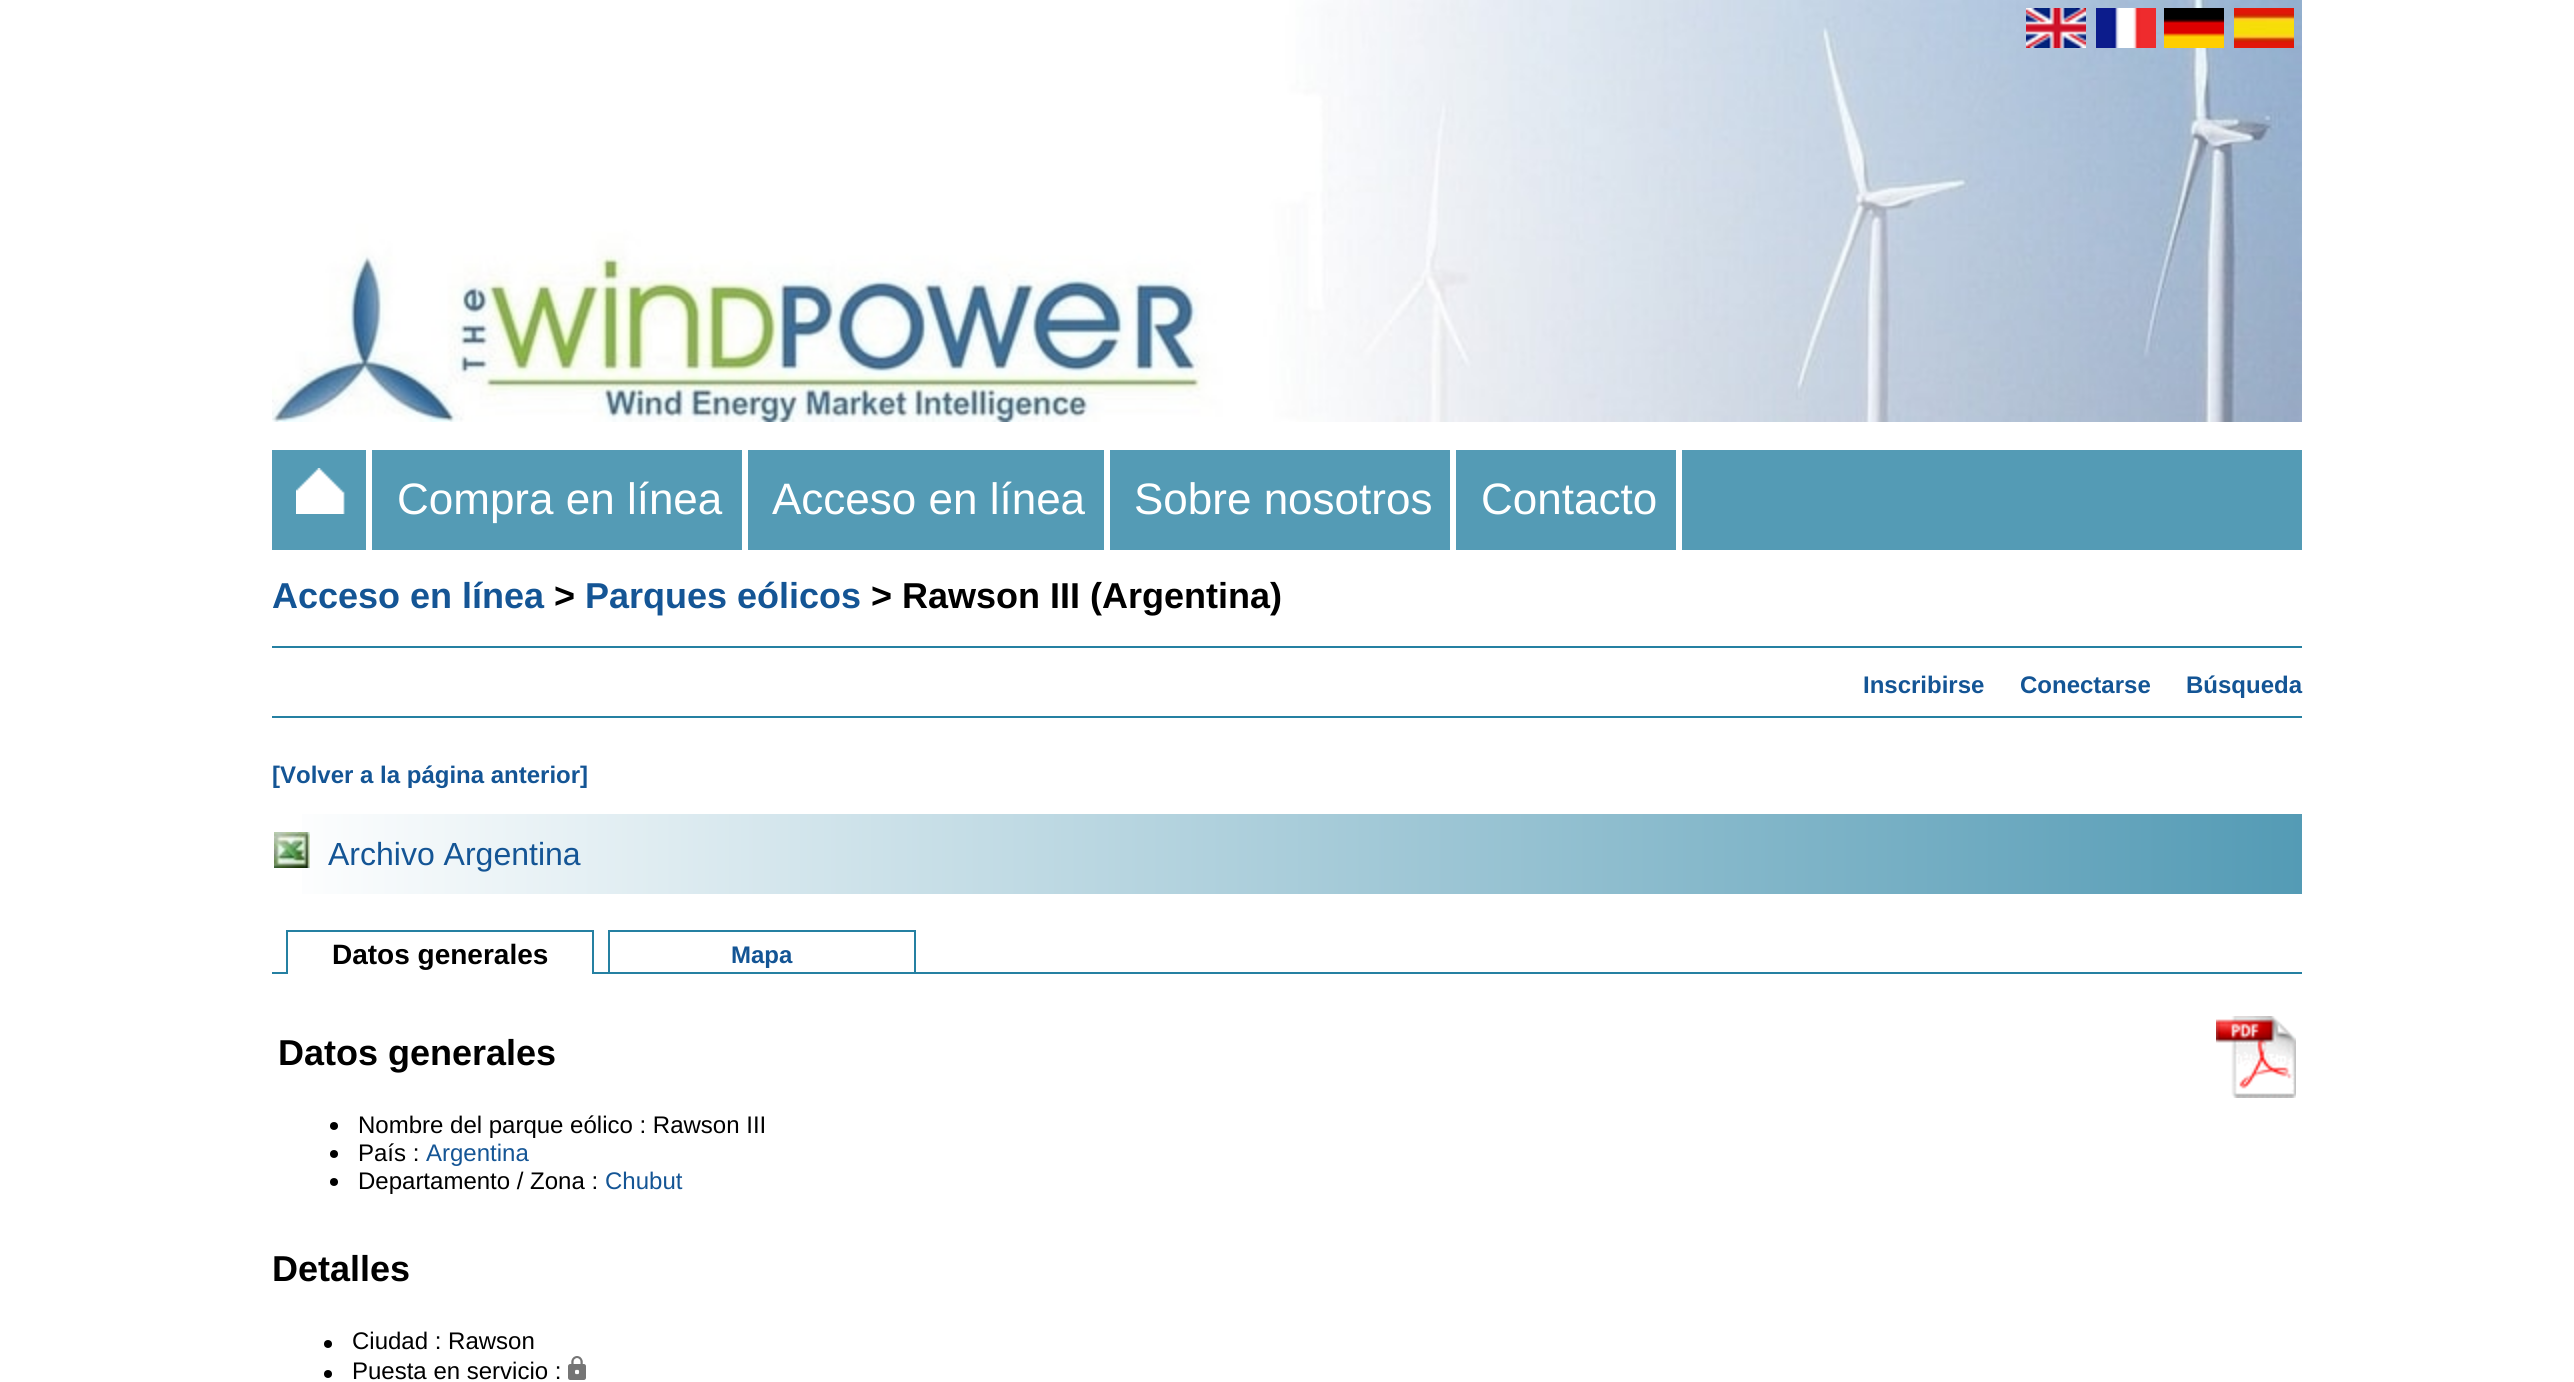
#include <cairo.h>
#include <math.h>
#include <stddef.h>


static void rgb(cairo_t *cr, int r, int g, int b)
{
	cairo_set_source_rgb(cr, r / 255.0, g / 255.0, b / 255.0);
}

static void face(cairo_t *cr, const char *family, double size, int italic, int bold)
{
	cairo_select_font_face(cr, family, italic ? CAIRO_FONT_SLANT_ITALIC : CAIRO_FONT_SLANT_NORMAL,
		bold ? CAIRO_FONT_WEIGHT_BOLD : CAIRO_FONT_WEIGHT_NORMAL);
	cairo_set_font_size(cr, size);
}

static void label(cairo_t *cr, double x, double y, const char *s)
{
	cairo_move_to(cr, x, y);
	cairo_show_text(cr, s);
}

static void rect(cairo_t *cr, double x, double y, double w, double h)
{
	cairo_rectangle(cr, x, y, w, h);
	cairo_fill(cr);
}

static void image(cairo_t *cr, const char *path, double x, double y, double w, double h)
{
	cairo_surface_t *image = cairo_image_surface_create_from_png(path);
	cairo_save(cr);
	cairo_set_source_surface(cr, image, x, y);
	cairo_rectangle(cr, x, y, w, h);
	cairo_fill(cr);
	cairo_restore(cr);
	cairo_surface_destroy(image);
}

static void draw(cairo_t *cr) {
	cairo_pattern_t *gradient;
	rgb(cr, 255, 255, 255);
	cairo_paint(cr);
	image(cr, "image0.png", 272, 0, 2030, 422);
	image(cr, "image1.png", 2026, 8, 60, 40);
	image(cr, "image2.png", 2096, 8, 60, 40);
	image(cr, "image3.png", 2164, 8, 60, 40);
	image(cr, "image4.png", 2234, 8, 60, 40);
	rgb(cr, 84, 155, 181);
	rect(cr, 272, 450, 2030, 100);
	rgb(cr, 255, 255, 255);
	rect(cr, 366, 450, 6, 100);
	image(cr, "image5.png", 296, 468, 49, 46);
	rect(cr, 742, 450, 6, 100);
	face(cr, "Liberation Sans", 44, 0, 0);
	label(cr, 397, 514, "Compra en línea");
	rect(cr, 1104, 450, 6, 100);
	label(cr, 772, 514, "Acceso en línea");
	rect(cr, 1450, 450, 6, 100);
	label(cr, 1134, 514, "Sobre nosotros");
	rect(cr, 1676, 450, 6, 100);
	label(cr, 1481, 514, "Contacto");
	face(cr, "Liberation Sans", 36, 0, 1);
	rgb(cr, 20, 85, 149);
	label(cr, 272, 608, "Acceso en línea");
	rgb(cr, 0, 0, 0);
	label(cr, 554, 608, ">");
	rgb(cr, 20, 85, 149);
	label(cr, 585, 608, "Parques eólicos");
	rgb(cr, 0, 0, 0);
	label(cr, 871, 608, "> Rawson III (Argentina)");
	rgb(cr, 37, 128, 162);
	rect(cr, 272, 646, 2030, 2);
	face(cr, "Liberation Sans", 24, 0, 1);
	rgb(cr, 20, 85, 149);
	label(cr, 1863, 693, "Inscribirse");
	label(cr, 2020, 693, "Conectarse");
	label(cr, 2186, 693, "Búsqueda");
	rgb(cr, 37, 128, 162);
	rect(cr, 272, 716, 2030, 2);
	rgb(cr, 20, 85, 149);
	label(cr, 272, 783, "[Volver a la página anterior]");
	gradient = cairo_pattern_create_linear(272, 854, 2302, 854);
	cairo_pattern_add_color_stop_rgba(gradient, 0, 1, 1, 1, 1);
	cairo_pattern_add_color_stop_rgba(gradient, 1, 0.329, 0.608, 0.71, 1);
	cairo_set_source(cr, gradient);
	cairo_pattern_destroy(gradient);
	rect(cr, 302, 814, 2000, 80);
	image(cr, "image6.png", 274, 832, 36, 36);
	face(cr, "Liberation Sans", 32, 0, 0);
	rgb(cr, 20, 85, 149);
	label(cr, 328, 865, "Archivo Argentina");
	rgb(cr, 37, 128, 162);
	rect(cr, 286, 930, 308, 2);
	rect(cr, 592, 930, 2, 44);
	rect(cr, 286, 930, 2, 44);
	face(cr, "Liberation Sans", 28, 0, 1);
	rgb(cr, 0, 0, 0);
	label(cr, 332, 964, "Datos generales");
	cairo_rectangle(cr, 609, 931, 306, 42);
	rgb(cr, 37, 128, 162);
	cairo_stroke(cr);
	face(cr, "Liberation Sans", 24, 0, 1);
	rgb(cr, 20, 85, 149);
	label(cr, 731, 963, "Mapa");
	rgb(cr, 37, 128, 162);
	rect(cr, 272, 972, 14, 2);
	rect(cr, 594, 972, 14, 2);
	rect(cr, 916, 972, 1386, 2);
	face(cr, "Liberation Sans", 36, 0, 1);
	rgb(cr, 0, 0, 0);
	label(cr, 278, 1065, "Datos generales");
	cairo_new_path(cr);
	cairo_arc(cr, 334, 1126, 4, 0, 2 * M_PI);
	cairo_fill(cr);
	face(cr, "Liberation Sans", 24, 0, 0);
	label(cr, 358, 1133, "Nombre del parque eólico : Rawson III");
	cairo_new_path(cr);
	cairo_arc(cr, 334, 1154, 4, 0, 2 * M_PI);
	cairo_fill(cr);
	label(cr, 358, 1161, "País :");
	rgb(cr, 20, 85, 149);
	label(cr, 426, 1161, "Argentina");
	rgb(cr, 0, 0, 0);
	cairo_new_path(cr);
	cairo_arc(cr, 334, 1182, 4, 0, 2 * M_PI);
	cairo_fill(cr);
	label(cr, 358, 1189, "Departamento / Zona :");
	rgb(cr, 20, 85, 149);
	label(cr, 605, 1189, "Chubut");
	image(cr, "image7.png", 2216, 1016, 80, 82);
	face(cr, "Liberation Sans", 36, 0, 1);
	rgb(cr, 0, 0, 0);
	label(cr, 272, 1281, "Detalles");
	cairo_new_path(cr);
	cairo_arc(cr, 328, 1344, 4, 0, 2 * M_PI);
	cairo_fill(cr);
	face(cr, "Liberation Sans", 24, 0, 0);
	label(cr, 352, 1349, "Ciudad : Rawson");
	cairo_new_path(cr);
	cairo_arc(cr, 328, 1374, 4, 0, 2 * M_PI);
	cairo_fill(cr);
	label(cr, 352, 1379, "Puesta en servicio :");
	image(cr, "image8.png", 568, 1356, 18, 24);
}

int main(void) {
	cairo_surface_t *surface = cairo_image_surface_create(CAIRO_FORMAT_RGB24, 2574, 1382);
	cairo_t *cr = cairo_create(surface);
	cairo_font_options_t *options = cairo_font_options_create();
	cairo_font_options_set_hint_metrics(options, CAIRO_HINT_METRICS_OFF);
	cairo_font_options_set_hint_style(options, CAIRO_HINT_STYLE_NONE);
	cairo_set_font_options(cr, options);
	cairo_set_miter_limit(cr, 4);
	draw(cr);
	cairo_surface_write_to_png(surface, "render.png");
	cairo_font_options_destroy(options);
	cairo_destroy(cr);
	cairo_surface_destroy(surface);
	return 0;
}
